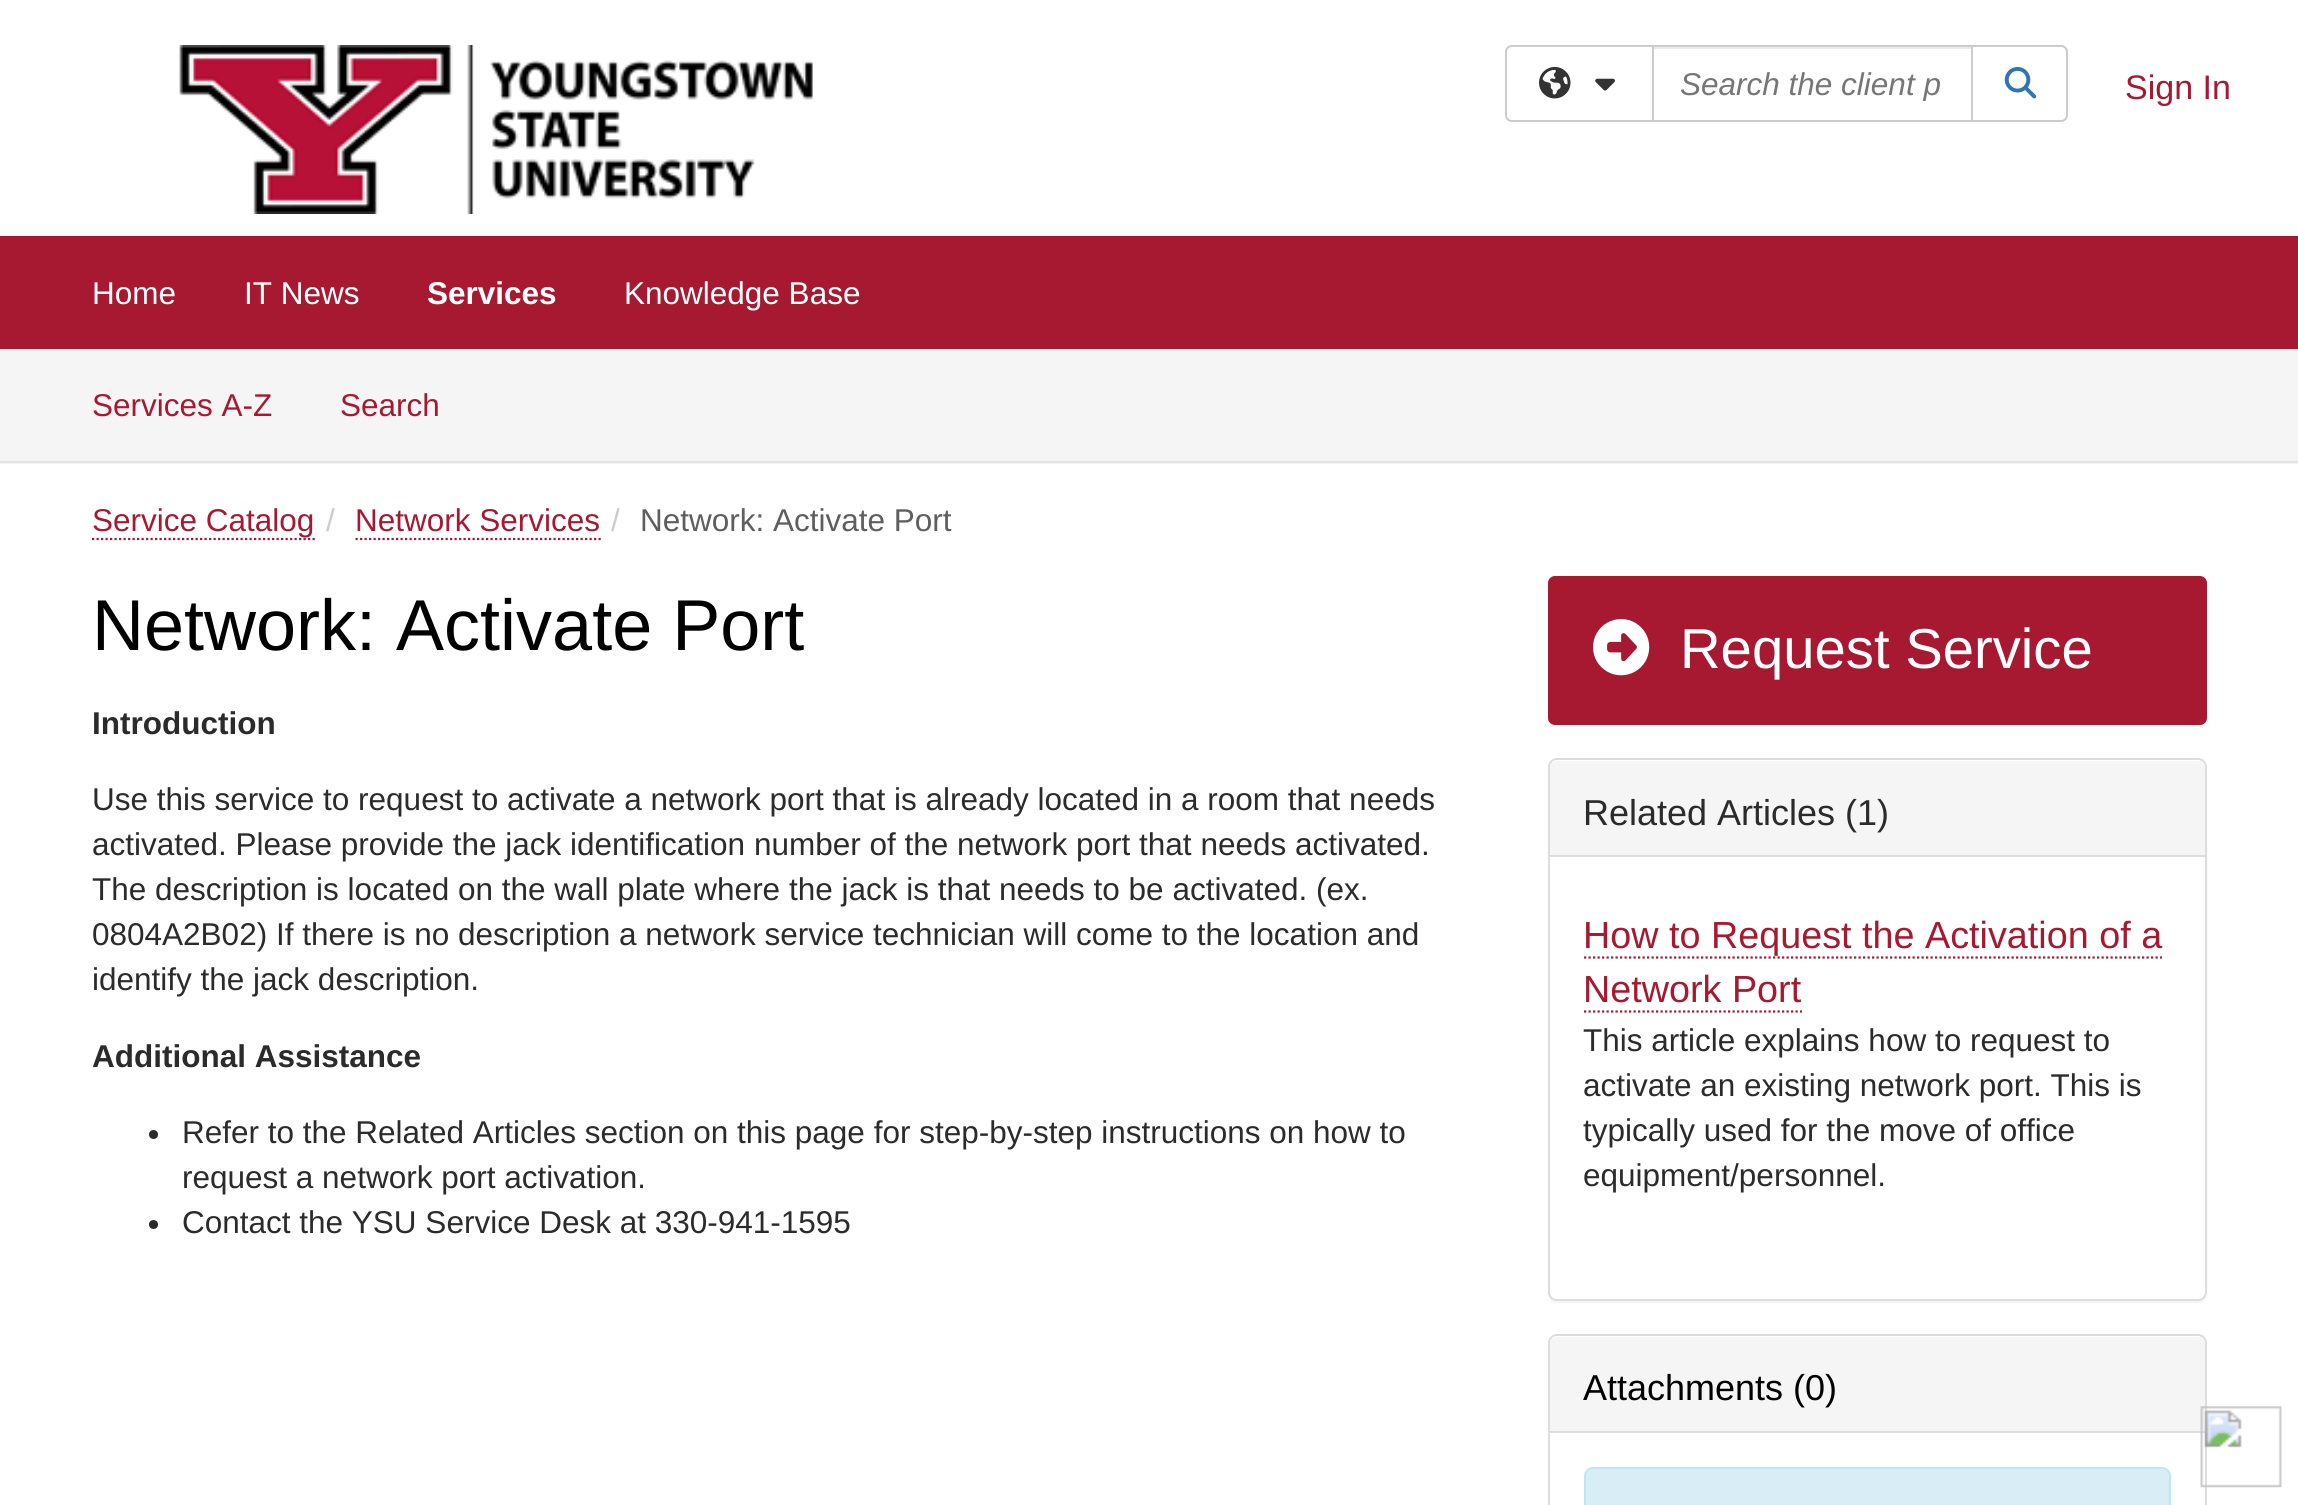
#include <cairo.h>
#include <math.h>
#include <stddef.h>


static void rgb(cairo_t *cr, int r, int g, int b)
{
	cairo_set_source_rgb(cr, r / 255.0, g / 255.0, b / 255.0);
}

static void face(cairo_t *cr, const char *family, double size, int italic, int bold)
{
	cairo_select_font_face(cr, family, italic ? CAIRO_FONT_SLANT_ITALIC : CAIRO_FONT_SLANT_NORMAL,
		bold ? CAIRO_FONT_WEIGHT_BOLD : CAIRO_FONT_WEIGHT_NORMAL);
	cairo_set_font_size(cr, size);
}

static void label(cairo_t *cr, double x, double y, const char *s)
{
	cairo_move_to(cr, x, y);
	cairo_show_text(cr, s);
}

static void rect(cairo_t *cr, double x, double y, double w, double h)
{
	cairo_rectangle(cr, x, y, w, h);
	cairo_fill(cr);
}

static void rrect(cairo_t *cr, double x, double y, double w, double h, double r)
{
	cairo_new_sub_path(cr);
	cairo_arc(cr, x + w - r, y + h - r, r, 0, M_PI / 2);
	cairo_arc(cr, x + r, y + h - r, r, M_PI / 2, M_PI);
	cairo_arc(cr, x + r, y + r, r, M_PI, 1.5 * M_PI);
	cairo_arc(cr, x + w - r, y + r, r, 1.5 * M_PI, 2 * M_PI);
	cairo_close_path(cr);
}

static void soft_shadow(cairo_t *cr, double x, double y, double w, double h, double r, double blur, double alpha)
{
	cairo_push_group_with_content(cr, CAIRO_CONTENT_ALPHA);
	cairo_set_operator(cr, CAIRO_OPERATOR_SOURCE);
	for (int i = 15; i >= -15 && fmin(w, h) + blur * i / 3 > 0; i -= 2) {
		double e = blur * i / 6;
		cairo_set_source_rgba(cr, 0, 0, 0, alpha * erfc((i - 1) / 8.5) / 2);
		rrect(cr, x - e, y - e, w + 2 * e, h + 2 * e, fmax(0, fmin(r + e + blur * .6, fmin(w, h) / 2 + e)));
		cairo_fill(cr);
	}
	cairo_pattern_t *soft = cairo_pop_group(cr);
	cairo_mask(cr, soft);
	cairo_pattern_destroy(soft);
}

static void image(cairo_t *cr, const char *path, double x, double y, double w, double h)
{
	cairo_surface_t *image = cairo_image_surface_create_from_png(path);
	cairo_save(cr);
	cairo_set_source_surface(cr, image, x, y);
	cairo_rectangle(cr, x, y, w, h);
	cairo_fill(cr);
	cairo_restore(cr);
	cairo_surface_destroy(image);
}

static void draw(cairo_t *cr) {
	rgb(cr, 255, 255, 255);
	cairo_paint(cr);
	image(cr, "image0.png", 179, 45, 634, 169);
	cairo_new_path(cr);
	cairo_move_to(cr, 1512, 46);
	cairo_line_to(cr, 1653, 46);
	cairo_line_to(cr, 1653, 121);
	cairo_line_to(cr, 1512, 121);
	cairo_curve_to(cr, 1508.5, 121, 1506, 118.5, 1506, 115);
	cairo_line_to(cr, 1506, 52);
	cairo_curve_to(cr, 1506, 48.5, 1508.5, 46, 1512, 46);
	cairo_close_path(cr);
	rgb(cr, 204, 204, 204);
	cairo_stroke(cr);
	image(cr, "image1.png", 1539, 66, 32, 33);
	image(cr, "image2.png", 1595, 78, 20, 13);
	rgb(cr, 236, 236, 236);
	rect(cr, 1654, 47, 317, 2);
	cairo_rectangle(cr, 1653, 46, 319, 75);
	rgb(cr, 204, 204, 204);
	cairo_stroke(cr);
	cairo_save(cr);
	cairo_rectangle(cr, 1681, 65, 263, 36);
	cairo_clip(cr);
	face(cr, "Liberation Sans", 31.5, 1, 0);
	rgb(cr, 118, 118, 118);
	label(cr, 1680, 95, "Search the client p");
	cairo_restore(cr);
	rgb(cr, 255, 255, 255);
	cairo_new_path(cr);
	cairo_move_to(cr, 1972, 46);
	cairo_line_to(cr, 2061, 46);
	cairo_curve_to(cr, 2064.5, 46, 2067, 48.5, 2067, 52);
	cairo_line_to(cr, 2067, 115);
	cairo_curve_to(cr, 2067, 118.5, 2064.5, 121, 2061, 121);
	cairo_line_to(cr, 1972, 121);
	cairo_close_path(cr);
	cairo_fill_preserve(cr);
	rgb(cr, 204, 204, 204);
	cairo_stroke(cr);
	image(cr, "image3.png", 2004, 66, 33, 33);
	face(cr, "Liberation Sans", 34, 0, 0);
	rgb(cr, 167, 25, 48);
	label(cr, 2125, 99, "Sign In");
	rect(cr, 0, 236, 2298, 113);
	face(cr, "Liberation Sans", 31.5, 0, 0);
	rgb(cr, 255, 255, 255);
	label(cr, 92, 304, "Home");
	label(cr, 244, 304, "IT News");
	face(cr, "Liberation Sans", 31.5, 0, 1);
	label(cr, 427, 304, "Services");
	face(cr, "Liberation Sans", 31.5, 0, 0);
	label(cr, 624, 304, "Knowledge Base");
	rgb(cr, 245, 245, 245);
	rect(cr, 0, 349, 2298, 115);
	rgb(cr, 227, 227, 227);
	rect(cr, 0, 461, 2298, 2);
	rgb(cr, 167, 25, 48);
	label(cr, 92, 416, "Services A-Z");
	label(cr, 340, 416, "Search");
	cairo_new_path(cr);
	cairo_move_to(cr, 92, 539);
	cairo_line_to(cr, 315, 539);
	cairo_set_line_width(cr, 2.2);
	cairo_set_dash(cr, (double[]){2.25, 2.25}, 2, 0);
	cairo_stroke(cr);
	label(cr, 92, 531, "Service Catalog");
	rgb(cr, 204, 204, 204);
	label(cr, 326, 531, "/");
	rgb(cr, 167, 25, 48);
	label(cr, 355, 531, "Network Services");
	cairo_new_path(cr);
	cairo_move_to(cr, 355.5, 539);
	cairo_line_to(cr, 601, 539);
	cairo_stroke(cr);
	rgb(cr, 204, 204, 204);
	label(cr, 611, 531, "/");
	rgb(cr, 94, 94, 94);
	label(cr, 640, 531, "Network: Activate Port");
	face(cr, "Liberation Sans", 72, 0, 0);
	rgb(cr, 0, 0, 0);
	label(cr, 92, 650, "Network: Activate Port");
	face(cr, "Liberation Sans", 31.5, 0, 1);
	rgb(cr, 43, 43, 43);
	label(cr, 92, 734, "Introduction");
	face(cr, "Liberation Sans", 31.5, 0, 0);
	label(cr, 92, 810, "Use this service to request to activate a network port that is already located in a room that needs");
	label(cr, 92, 855, "activated. Please provide the jack identification number of the network port that needs activated.");
	label(cr, 92, 900, "The description is located on the wall plate where the jack is that needs to be activated. (ex.");
	label(cr, 92, 945, "0804A2B02) If there is no description a network service technician will come to the location and");
	label(cr, 92, 990, "identify the jack description.");
	face(cr, "Liberation Sans", 31.5, 0, 1);
	label(cr, 92, 1067, "Additional Assistance");
	cairo_new_path(cr);
	cairo_arc(cr, 153.5, 1134.5, 4.5, 0, 2 * M_PI);
	cairo_fill(cr);
	face(cr, "Liberation Sans", 31.5, 0, 0);
	label(cr, 182, 1143, "Refer to the Related Articles section on this page for step-by-step instructions on how to");
	label(cr, 182, 1188, "request a network port activation.");
	cairo_new_path(cr);
	cairo_arc(cr, 153.5, 1224.5, 4.5, 0, 2 * M_PI);
	cairo_fill(cr);
	label(cr, 182, 1233, "Contact the YSU Service Desk at 330-941-1595");
	rgb(cr, 167, 25, 48);
	rrect(cr, 1548, 576, 659, 149, 7);
	cairo_fill(cr);
	image(cr, "image4.png", 1593, 619, 57, 57);
	face(cr, "Liberation Sans", 56.25, 0, 0);
	rgb(cr, 255, 255, 255);
	label(cr, 1680, 668, "Request Service");
	rgb(cr, 0, 0, 0);
	soft_shadow(cr, 1548, 761, 659, 542, 9, 1, 0.05);
	rgb(cr, 255, 255, 255);
	rrect(cr, 1549, 759, 657, 541, 8);
	cairo_fill_preserve(cr);
	rgb(cr, 221, 221, 221);
	cairo_set_line_width(cr, 2);
	cairo_set_dash(cr, NULL, 0, 0);
	cairo_stroke(cr);
	rgb(cr, 245, 245, 245);
	cairo_new_path(cr);
	cairo_move_to(cr, 1557, 761);
	cairo_line_to(cr, 2198, 761);
	cairo_curve_to(cr, 2202, 761, 2205, 764, 2205, 768);
	cairo_line_to(cr, 2205, 857);
	cairo_line_to(cr, 1550, 857);
	cairo_line_to(cr, 1550, 768);
	cairo_curve_to(cr, 1550, 764, 1553, 761, 1557, 761);
	cairo_close_path(cr);
	cairo_fill(cr);
	rgb(cr, 221, 221, 221);
	rect(cr, 1550, 855, 655, 2);
	face(cr, "Liberation Sans", 36, 0, 0);
	rgb(cr, 43, 43, 43);
	label(cr, 1583, 825, "Related Articles (1)");
	face(cr, "Liberation Sans", 37.75, 0, 0);
	rgb(cr, 167, 25, 48);
	label(cr, 1583, 948, "How to Request the Activation of a");
	cairo_new_path(cr);
	cairo_move_to(cr, 1584, 957.5);
	cairo_line_to(cr, 2162, 957.5);
	cairo_set_line_width(cr, 2.2);
	cairo_set_dash(cr, (double[]){2.25, 2.25}, 2, 0);
	cairo_stroke(cr);
	label(cr, 1583, 1002, "Network Port");
	cairo_new_path(cr);
	cairo_move_to(cr, 1584, 1011.5);
	cairo_line_to(cr, 1802, 1011.5);
	cairo_stroke(cr);
	face(cr, "Liberation Sans", 31.5, 0, 0);
	rgb(cr, 43, 43, 43);
	label(cr, 1583, 1051, "This article explains how to request to");
	label(cr, 1583, 1096, "activate an existing network port. This is");
	label(cr, 1583, 1141, "typically used for the move of office");
	label(cr, 1583, 1186, "equipment/personnel.");
	rrect(cr, 1549, 1335, 657, 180, 8);
	rgb(cr, 221, 221, 221);
	cairo_set_line_width(cr, 2);
	cairo_set_dash(cr, NULL, 0, 0);
	cairo_stroke(cr);
	rgb(cr, 245, 245, 245);
	cairo_new_path(cr);
	cairo_move_to(cr, 1557, 1337);
	cairo_line_to(cr, 2198, 1337);
	cairo_curve_to(cr, 2202, 1337, 2205, 1340, 2205, 1344);
	cairo_line_to(cr, 2205, 1433);
	cairo_line_to(cr, 1550, 1433);
	cairo_line_to(cr, 1550, 1344);
	cairo_curve_to(cr, 1550, 1340, 1553, 1337, 1557, 1337);
	cairo_close_path(cr);
	cairo_fill(cr);
	rgb(cr, 221, 221, 221);
	rect(cr, 1550, 1431, 655, 2);
	face(cr, "Liberation Sans", 36, 0, 0);
	rgb(cr, 0, 0, 0);
	label(cr, 1583, 1400, "Attachments (0)");
	rgb(cr, 217, 237, 247);
	rrect(cr, 1585, 1468, 585, 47, 8);
	cairo_fill_preserve(cr);
	rgb(cr, 188, 232, 241);
	cairo_stroke(cr);
	image(cr, "image5.png", 2200, 1406, 82, 82);
}

int main(void) {
	cairo_surface_t *surface = cairo_image_surface_create(CAIRO_FORMAT_RGB24, 2298, 1505);
	cairo_t *cr = cairo_create(surface);
	cairo_font_options_t *options = cairo_font_options_create();
	cairo_font_options_set_hint_metrics(options, CAIRO_HINT_METRICS_OFF);
	cairo_font_options_set_hint_style(options, CAIRO_HINT_STYLE_NONE);
	cairo_set_font_options(cr, options);
	cairo_set_miter_limit(cr, 4);
	draw(cr);
	cairo_surface_write_to_png(surface, "render.png");
	cairo_font_options_destroy(options);
	cairo_destroy(cr);
	cairo_surface_destroy(surface);
	return 0;
}
